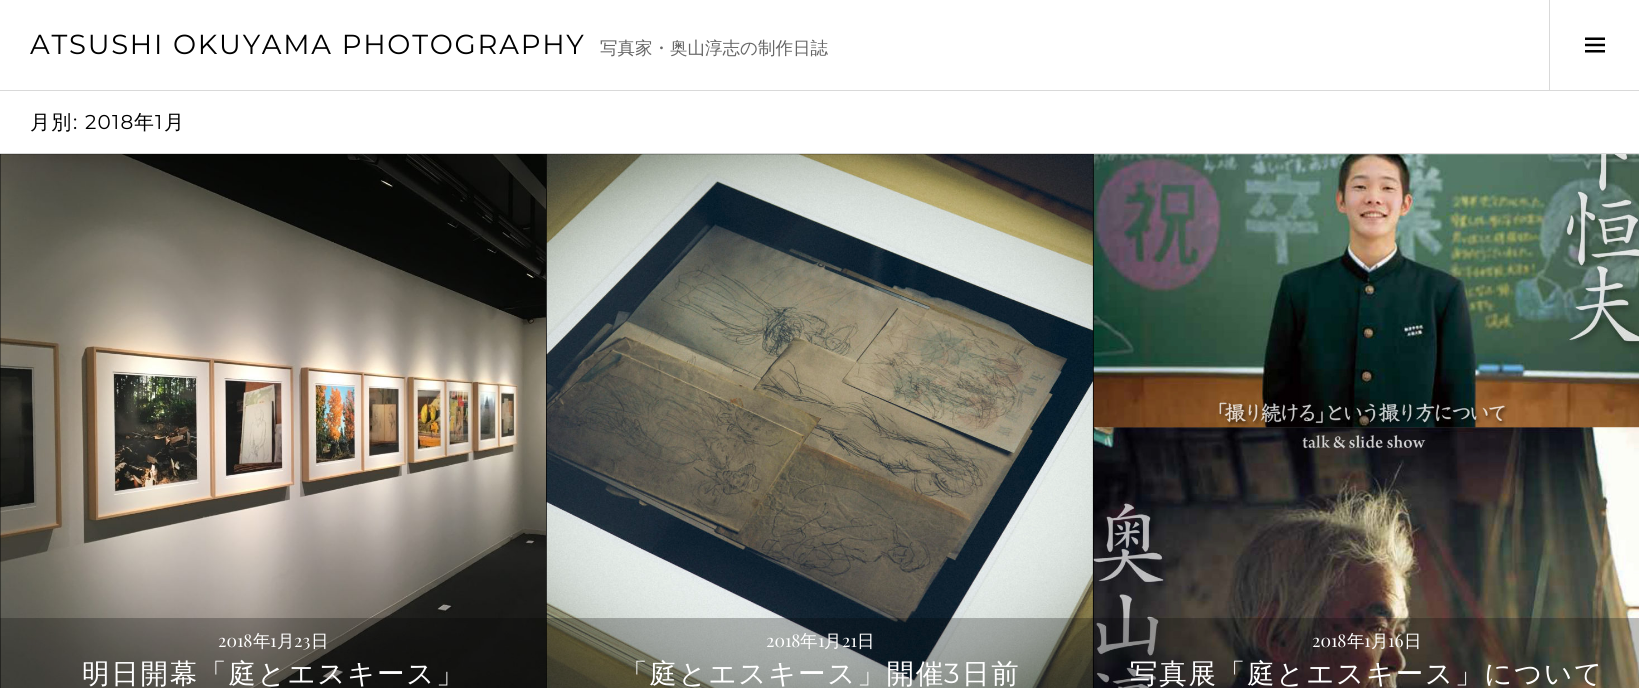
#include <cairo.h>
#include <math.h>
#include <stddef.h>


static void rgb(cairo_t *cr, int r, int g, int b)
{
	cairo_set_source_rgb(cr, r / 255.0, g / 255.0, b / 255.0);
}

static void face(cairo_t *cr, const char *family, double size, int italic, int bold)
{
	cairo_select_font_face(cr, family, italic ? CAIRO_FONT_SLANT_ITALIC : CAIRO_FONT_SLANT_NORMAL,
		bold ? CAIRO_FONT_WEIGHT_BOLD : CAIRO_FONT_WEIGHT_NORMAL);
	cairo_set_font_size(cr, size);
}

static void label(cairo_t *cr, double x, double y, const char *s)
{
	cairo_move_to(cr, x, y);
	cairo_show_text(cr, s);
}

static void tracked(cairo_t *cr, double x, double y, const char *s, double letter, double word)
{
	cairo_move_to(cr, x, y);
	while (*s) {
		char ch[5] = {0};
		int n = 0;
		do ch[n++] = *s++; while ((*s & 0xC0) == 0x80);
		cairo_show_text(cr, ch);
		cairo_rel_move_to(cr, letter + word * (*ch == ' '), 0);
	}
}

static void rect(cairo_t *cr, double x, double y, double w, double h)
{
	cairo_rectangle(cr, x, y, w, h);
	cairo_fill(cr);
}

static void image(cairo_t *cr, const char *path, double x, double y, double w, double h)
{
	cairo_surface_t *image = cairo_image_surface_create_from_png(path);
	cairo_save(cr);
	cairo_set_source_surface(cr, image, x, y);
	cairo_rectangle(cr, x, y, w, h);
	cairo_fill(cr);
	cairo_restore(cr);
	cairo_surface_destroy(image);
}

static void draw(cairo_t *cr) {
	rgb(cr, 255, 255, 255);
	cairo_paint(cr);
	rgb(cr, 217, 217, 217);
	rect(cr, 0, 90, 1639, 1);
	face(cr, "Montserrat", 27.5, 0, 0);
	rgb(cr, 0, 0, 0);
	tracked(cr, 30, 54, "ATSUSHI OKUYAMA PHOTOGRAPHY", 1.75, 0);
	face(cr, "WenQuanYi Zen Hei Medium", 17.5, 0, 0);
	rgb(cr, 102, 102, 102);
	label(cr, 600, 54, "写真家・奥山淳志の制作日誌");
	rgb(cr, 217, 217, 217);
	rect(cr, 1549, 0, 1, 90);
	image(cr, "image0.png", 1585, 37, 20, 16);
	rect(cr, 0, 153, 1639, 1);
	face(cr, "WenQuanYi Zen Hei Medium", 20, 0, 0);
	rgb(cr, 0, 0, 0);
	tracked(cr, 30, 129, "月別", 1.25, 0);
	face(cr, "Montserrat", 20, 0, 0);
	tracked(cr, 73, 129, ": 2018", 1.25, 0);
	face(cr, "WenQuanYi Zen Hei Medium", 20, 0, 0);
	tracked(cr, 134, 129, "年", 1.25, 0);
	face(cr, "Montserrat", 20, 0, 0);
	tracked(cr, 155, 129, "1", 1.25, 0);
	face(cr, "WenQuanYi Zen Hei Medium", 20, 0, 0);
	tracked(cr, 164, 129, "月", 1.25, 0);
	rect(cr, 0, 154, 1094, 534);
	image(cr, "image1.png", 0, 154, 546, 534);
	cairo_set_source_rgba(cr, 0, 0, 0, 0.25);
	rect(cr, 0, 618, 546, 70);
	face(cr, "Playfair Display", 17.5, 0, 0);
	rgb(cr, 255, 255, 255);
	label(cr, 218, 647, "2018");
	face(cr, "WenQuanYi Zen Hei Medium", 17.5, 0, 0);
	label(cr, 253, 647, "年");
	face(cr, "Playfair Display", 17.5, 0, 0);
	label(cr, 270, 647, "1");
	face(cr, "WenQuanYi Zen Hei Medium", 17.5, 0, 0);
	label(cr, 277, 647, "月");
	face(cr, "Playfair Display", 17.5, 0, 0);
	label(cr, 294, 647, "23");
	face(cr, "WenQuanYi Zen Hei Medium", 17.5, 0, 0);
	label(cr, 311, 647, "日");
	face(cr, "WenQuanYi Zen Hei Medium", 27.5, 0, 0);
	tracked(cr, 82, 683, "明日開幕「庭とエスキース」", 1.75, 0);
	image(cr, "image2.png", 546, 154, 547, 534);
	image(cr, "image3.png", 1093, 154, 546, 534);
	cairo_set_source_rgba(cr, 0, 0, 0, 0.25);
	rect(cr, 546, 618, 548, 70);
	face(cr, "Playfair Display", 17.5, 0, 0);
	rgb(cr, 255, 255, 255);
	label(cr, 766, 647, "2018");
	face(cr, "WenQuanYi Zen Hei Medium", 17.5, 0, 0);
	label(cr, 800, 647, "年");
	face(cr, "Playfair Display", 17.5, 0, 0);
	label(cr, 818, 647, "1");
	face(cr, "WenQuanYi Zen Hei Medium", 17.5, 0, 0);
	label(cr, 824, 647, "月");
	face(cr, "Playfair Display", 17.5, 0, 0);
	label(cr, 842, 647, "21");
	face(cr, "WenQuanYi Zen Hei Medium", 17.5, 0, 0);
	label(cr, 857, 647, "日");
	face(cr, "WenQuanYi Zen Hei Medium", 27.5, 0, 0);
	tracked(cr, 620, 683, "「庭とエスキース」開催", 1.75, 0);
	face(cr, "Montserrat", 27.5, 0, 0);
	tracked(cr, 944, 683, "3", 1.75, 0);
	face(cr, "WenQuanYi Zen Hei Medium", 27.5, 0, 0);
	tracked(cr, 962, 683, "日前", 1.75, 0);
	cairo_set_source_rgba(cr, 0, 0, 0, 0.25);
	rect(cr, 1094, 618, 545, 70);
	face(cr, "Playfair Display", 17.5, 0, 0);
	rgb(cr, 255, 255, 255);
	label(cr, 1312, 647, "2018");
	face(cr, "WenQuanYi Zen Hei Medium", 17.5, 0, 0);
	label(cr, 1347, 647, "年");
	face(cr, "Playfair Display", 17.5, 0, 0);
	label(cr, 1364, 647, "1");
	face(cr, "WenQuanYi Zen Hei Medium", 17.5, 0, 0);
	label(cr, 1371, 647, "月");
	face(cr, "Playfair Display", 17.5, 0, 0);
	label(cr, 1388, 647, "16");
	face(cr, "WenQuanYi Zen Hei Medium", 17.5, 0, 0);
	label(cr, 1404, 647, "日");
	face(cr, "WenQuanYi Zen Hei Medium", 27.5, 0, 0);
	tracked(cr, 1130, 683, "写真展「庭とエスキース」について", 1.75, 0);
}

int main(void) {
	cairo_surface_t *surface = cairo_image_surface_create(CAIRO_FORMAT_RGB24, 1639, 688);
	cairo_t *cr = cairo_create(surface);
	cairo_font_options_t *options = cairo_font_options_create();
	cairo_font_options_set_hint_metrics(options, CAIRO_HINT_METRICS_OFF);
	cairo_font_options_set_hint_style(options, CAIRO_HINT_STYLE_NONE);
	cairo_set_font_options(cr, options);
	cairo_set_miter_limit(cr, 4);
	draw(cr);
	cairo_surface_write_to_png(surface, "render.png");
	cairo_font_options_destroy(options);
	cairo_destroy(cr);
	cairo_surface_destroy(surface);
	return 0;
}
